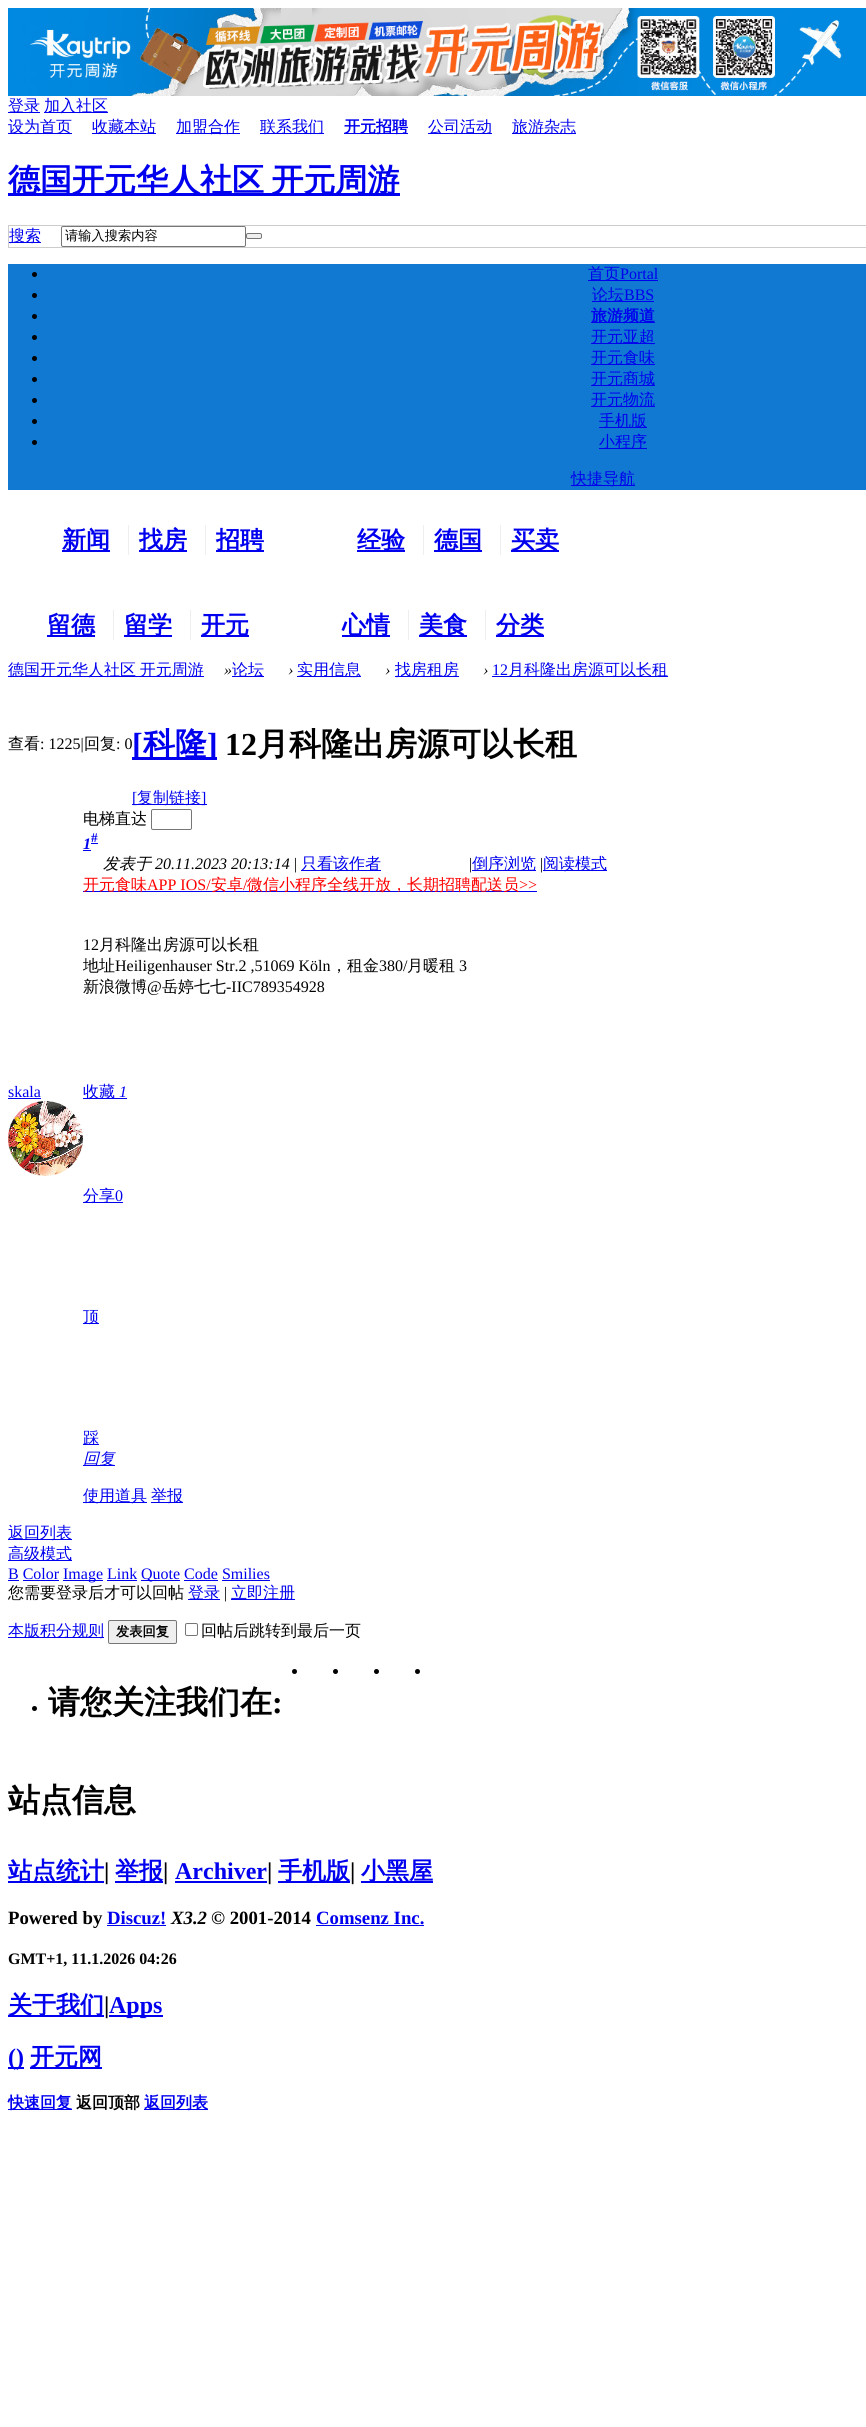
#include <cairo.h>
#include <math.h>
#include <stddef.h>


static void rgb(cairo_t *cr, int r, int g, int b)
{
	cairo_set_source_rgb(cr, r / 255.0, g / 255.0, b / 255.0);
}

static void face(cairo_t *cr, const char *family, double size, int italic, int bold)
{
	cairo_select_font_face(cr, family, italic ? CAIRO_FONT_SLANT_ITALIC : CAIRO_FONT_SLANT_NORMAL,
		bold ? CAIRO_FONT_WEIGHT_BOLD : CAIRO_FONT_WEIGHT_NORMAL);
	cairo_set_font_size(cr, size);
}

static void label(cairo_t *cr, double x, double y, const char *s)
{
	cairo_move_to(cr, x, y);
	cairo_show_text(cr, s);
}

static void tracked(cairo_t *cr, double x, double y, const char *s, double letter, double word)
{
	cairo_move_to(cr, x, y);
	while (*s) {
		char ch[5] = {0};
		int n = 0;
		do ch[n++] = *s++; while ((*s & 0xC0) == 0x80);
		cairo_show_text(cr, ch);
		cairo_rel_move_to(cr, letter + word * (*ch == ' '), 0);
	}
}

static void rect(cairo_t *cr, double x, double y, double w, double h)
{
	cairo_rectangle(cr, x, y, w, h);
	cairo_fill(cr);
}

static void rrect(cairo_t *cr, double x, double y, double w, double h, double r)
{
	cairo_new_sub_path(cr);
	cairo_arc(cr, x + w - r, y + h - r, r, 0, M_PI / 2);
	cairo_arc(cr, x + r, y + h - r, r, M_PI / 2, M_PI);
	cairo_arc(cr, x + r, y + r, r, M_PI, 1.5 * M_PI);
	cairo_arc(cr, x + w - r, y + r, r, 1.5 * M_PI, 2 * M_PI);
	cairo_close_path(cr);
}

static void image(cairo_t *cr, const char *path, double x, double y, double w, double h)
{
	cairo_surface_t *image = cairo_image_surface_create_from_png(path);
	cairo_save(cr);
	cairo_set_source_surface(cr, image, x, y);
	cairo_rectangle(cr, x, y, w, h);
	cairo_fill(cr);
	cairo_restore(cr);
	cairo_surface_destroy(image);
}

static void draw(cairo_t *cr) {
	rgb(cr, 255, 255, 255);
	cairo_paint(cr);
	image(cr, "image0.png", 8, 8, 858, 88);
	rgb(cr, 0, 0, 238);
	rect(cr, 8, 112, 32, 1);
	face(cr, "WenQuanYi Zen Hei Medium", 16, 0, 0);
	label(cr, 8, 111, "登录");
	rect(cr, 44, 112, 64, 1);
	label(cr, 44, 111, "加入社区");
	rect(cr, 8, 133, 64, 1);
	label(cr, 8, 132, "设为首页");
	rect(cr, 92, 133, 64, 1);
	label(cr, 92, 132, "收藏本站");
	rect(cr, 176, 133, 64, 1);
	label(cr, 176, 132, "加盟合作");
	rect(cr, 260, 133, 64, 1);
	label(cr, 260, 132, "联系我们");
	rect(cr, 344, 133, 64, 1);
	face(cr, "WenQuanYi Zen Hei", 16, 0, 1);
	label(cr, 344, 132, "开元招聘");
	rect(cr, 428, 133, 64, 1);
	face(cr, "WenQuanYi Zen Hei Medium", 16, 0, 0);
	label(cr, 428, 132, "公司活动");
	rect(cr, 512, 133, 64, 1);
	label(cr, 512, 132, "旅游杂志");
	rect(cr, 8, 193, 392, 3);
	face(cr, "WenQuanYi Zen Hei", 32, 0, 1);
	tracked(cr, 8, 191, "德国开元华人社区 开元周游", 0, -2);
	cairo_rectangle(cr, 8.5, 225.5, 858, 22);
	rgb(cr, 204, 204, 204);
	cairo_set_line_width(cr, 1);
	cairo_stroke(cr);
	rgb(cr, 0, 0, 238);
	rect(cr, 9, 242, 32, 1);
	face(cr, "WenQuanYi Zen Hei Medium", 16, 0, 0);
	label(cr, 9, 241, "搜索");
	rrect(cr, 61.5, 226.5, 184, 20, 1.5);
	rgb(cr, 118, 118, 118);
	cairo_stroke(cr);
	face(cr, "WenQuanYi Zen Hei Medium", 13.25, 0, 0);
	rgb(cr, 0, 0, 0);
	label(cr, 65, 240, "请输入搜索内容");
	rgb(cr, 239, 239, 239);
	rrect(cr, 246.5, 233.5, 15, 5, 1.5);
	cairo_fill_preserve(cr);
	rgb(cr, 118, 118, 118);
	cairo_stroke(cr);
	rgb(cr, 17, 121, 209);
	rect(cr, 8, 264, 858, 226);
	rgb(cr, 0, 0, 0);
	cairo_arc(cr, 34.5, 274.5, 2.5, 0, 2 * M_PI);
	cairo_fill(cr);
	rgb(cr, 0, 0, 238);
	rect(cr, 588, 280, 70, 1);
	face(cr, "WenQuanYi Zen Hei Medium", 16, 0, 0);
	label(cr, 588, 279, "首页");
	face(cr, "Liberation Serif", 16, 0, 0);
	label(cr, 620, 279, "Portal");
	rgb(cr, 0, 0, 0);
	cairo_new_path(cr);
	cairo_arc(cr, 34.5, 295.5, 2.5, 0, 2 * M_PI);
	cairo_fill(cr);
	rgb(cr, 0, 0, 238);
	rect(cr, 592, 301, 62, 1);
	face(cr, "WenQuanYi Zen Hei Medium", 16, 0, 0);
	label(cr, 592, 300, "论坛");
	face(cr, "Liberation Serif", 16, 0, 0);
	label(cr, 624, 300, "BBS");
	rgb(cr, 0, 0, 0);
	cairo_new_path(cr);
	cairo_arc(cr, 34.5, 316.5, 2.5, 0, 2 * M_PI);
	cairo_fill(cr);
	rgb(cr, 0, 0, 238);
	rect(cr, 591, 322, 64, 1);
	face(cr, "WenQuanYi Zen Hei", 16, 0, 1);
	label(cr, 591, 321, "旅游频道");
	rgb(cr, 0, 0, 0);
	cairo_new_path(cr);
	cairo_arc(cr, 34.5, 337.5, 2.5, 0, 2 * M_PI);
	cairo_fill(cr);
	rgb(cr, 0, 0, 238);
	rect(cr, 591, 343, 64, 1);
	face(cr, "WenQuanYi Zen Hei Medium", 16, 0, 0);
	label(cr, 591, 342, "开元亚超");
	rgb(cr, 0, 0, 0);
	cairo_new_path(cr);
	cairo_arc(cr, 34.5, 358.5, 2.5, 0, 2 * M_PI);
	cairo_fill(cr);
	rgb(cr, 0, 0, 238);
	rect(cr, 591, 364, 64, 1);
	label(cr, 591, 363, "开元食味");
	rgb(cr, 0, 0, 0);
	cairo_new_path(cr);
	cairo_arc(cr, 34.5, 379.5, 2.5, 0, 2 * M_PI);
	cairo_fill(cr);
	rgb(cr, 0, 0, 238);
	rect(cr, 591, 385, 64, 1);
	label(cr, 591, 384, "开元商城");
	rgb(cr, 0, 0, 0);
	cairo_new_path(cr);
	cairo_arc(cr, 34.5, 400.5, 2.5, 0, 2 * M_PI);
	cairo_fill(cr);
	rgb(cr, 0, 0, 238);
	rect(cr, 591, 406, 64, 1);
	label(cr, 591, 405, "开元物流");
	rgb(cr, 0, 0, 0);
	cairo_new_path(cr);
	cairo_arc(cr, 34.5, 421.5, 2.5, 0, 2 * M_PI);
	cairo_fill(cr);
	rgb(cr, 0, 0, 238);
	rect(cr, 599, 427, 48, 1);
	label(cr, 599, 426, "手机版");
	rgb(cr, 0, 0, 0);
	cairo_new_path(cr);
	cairo_arc(cr, 34.5, 442.5, 2.5, 0, 2 * M_PI);
	cairo_fill(cr);
	rgb(cr, 0, 0, 238);
	rect(cr, 599, 448, 48, 1);
	label(cr, 599, 447, "小程序");
	rect(cr, 571, 485, 64, 1);
	label(cr, 571, 484, "快捷导航");
	rgb(cr, 238, 238, 238);
	rect(cr, 128, 525, 1, 30);
	rgb(cr, 0, 0, 238);
	rect(cr, 62, 550, 48, 2);
	face(cr, "WenQuanYi Zen Hei", 24, 0, 1);
	label(cr, 62, 548, "新闻");
	rgb(cr, 238, 238, 238);
	rect(cr, 205, 525, 1, 30);
	rgb(cr, 0, 0, 238);
	rect(cr, 139, 550, 48, 2);
	label(cr, 139, 548, "找房");
	rect(cr, 216, 550, 48, 2);
	label(cr, 216, 548, "招聘");
	rgb(cr, 238, 238, 238);
	rect(cr, 423, 525, 1, 30);
	rgb(cr, 0, 0, 238);
	rect(cr, 357, 550, 48, 2);
	label(cr, 357, 548, "经验");
	rgb(cr, 238, 238, 238);
	rect(cr, 500, 525, 1, 30);
	rgb(cr, 0, 0, 238);
	rect(cr, 434, 550, 48, 2);
	label(cr, 434, 548, "德国");
	rect(cr, 511, 550, 48, 2);
	label(cr, 511, 548, "买卖");
	rgb(cr, 238, 238, 238);
	rect(cr, 113, 610, 1, 30);
	rgb(cr, 0, 0, 238);
	rect(cr, 47, 635, 48, 2);
	label(cr, 47, 633, "留德");
	rgb(cr, 238, 238, 238);
	rect(cr, 190, 610, 1, 30);
	rgb(cr, 0, 0, 238);
	rect(cr, 124, 635, 48, 2);
	label(cr, 124, 633, "留学");
	rect(cr, 201, 635, 48, 2);
	label(cr, 201, 633, "开元");
	rgb(cr, 238, 238, 238);
	rect(cr, 408, 610, 1, 30);
	rgb(cr, 0, 0, 238);
	rect(cr, 342, 635, 48, 2);
	label(cr, 342, 633, "心情");
	rgb(cr, 238, 238, 238);
	rect(cr, 485, 610, 1, 30);
	rgb(cr, 0, 0, 238);
	rect(cr, 419, 635, 48, 2);
	label(cr, 419, 633, "美食");
	rect(cr, 496, 635, 48, 2);
	label(cr, 496, 633, "分类");
	rect(cr, 8, 676, 196, 1);
	face(cr, "WenQuanYi Zen Hei Medium", 16, 0, 0);
	tracked(cr, 8, 675, "德国开元华人社区 开元周游", 0, -1);
	face(cr, "Liberation Serif", 16, 1, 0);
	rgb(cr, 0, 0, 0);
	label(cr, 224, 675, "»");
	rgb(cr, 0, 0, 238);
	rect(cr, 232, 676, 32, 1);
	face(cr, "WenQuanYi Zen Hei Medium", 16, 0, 0);
	label(cr, 232, 675, "论坛");
	face(cr, "Liberation Serif", 16, 1, 0);
	rgb(cr, 0, 0, 0);
	label(cr, 288, 675, "›");
	rgb(cr, 0, 0, 238);
	rect(cr, 297, 676, 64, 1);
	face(cr, "WenQuanYi Zen Hei Medium", 16, 0, 0);
	label(cr, 297, 675, "实用信息");
	face(cr, "Liberation Serif", 16, 1, 0);
	rgb(cr, 0, 0, 0);
	label(cr, 385, 675, "›");
	rgb(cr, 0, 0, 238);
	rect(cr, 395, 676, 64, 1);
	face(cr, "WenQuanYi Zen Hei Medium", 16, 0, 0);
	label(cr, 395, 675, "找房租房");
	face(cr, "Liberation Serif", 16, 1, 0);
	rgb(cr, 0, 0, 0);
	label(cr, 483, 675, "›");
	face(cr, "Liberation Serif", 16, 0, 0);
	rgb(cr, 0, 0, 238);
	label(cr, 492, 675, "12");
	rect(cr, 492, 676, 176, 1);
	face(cr, "WenQuanYi Zen Hei Medium", 16, 0, 0);
	label(cr, 508, 675, "月科隆出房源可以长租");
	rgb(cr, 0, 0, 0);
	label(cr, 8, 749, "查看");
	face(cr, "Liberation Serif", 16, 0, 0);
	label(cr, 40, 749, ": 1225|");
	face(cr, "WenQuanYi Zen Hei Medium", 16, 0, 0);
	label(cr, 84, 749, "回复");
	face(cr, "Liberation Serif", 16, 0, 0);
	label(cr, 116, 749, ": 0");
	rgb(cr, 0, 0, 238);
	rect(cr, 132, 757, 85, 3);
	face(cr, "Liberation Serif", 32, 0, 1);
	label(cr, 132, 755, "[");
	face(cr, "WenQuanYi Zen Hei", 32, 0, 1);
	label(cr, 143, 755, "科隆");
	face(cr, "Liberation Serif", 32, 0, 1);
	label(cr, 207, 755, "]");
	rgb(cr, 0, 0, 0);
	label(cr, 225, 755, "12");
	face(cr, "WenQuanYi Zen Hei", 32, 0, 1);
	label(cr, 257, 755, "月科隆出房源可以长租");
	rgb(cr, 0, 0, 238);
	rect(cr, 132, 804, 75, 1);
	face(cr, "Liberation Serif", 16, 0, 0);
	label(cr, 132, 803, "[");
	face(cr, "WenQuanYi Zen Hei Medium", 16, 0, 0);
	label(cr, 137, 803, "复制链接");
	face(cr, "Liberation Serif", 16, 0, 0);
	label(cr, 201, 803, "]");
	face(cr, "WenQuanYi Zen Hei Medium", 16, 0, 0);
	rgb(cr, 0, 0, 0);
	label(cr, 83, 824, "电梯直达");
	rrect(cr, 151.5, 809.5, 40, 20, 1.5);
	rgb(cr, 118, 118, 118);
	cairo_stroke(cr);
	face(cr, "Liberation Serif", 16, 1, 1);
	rgb(cr, 0, 0, 238);
	label(cr, 83, 849, "1");
	rect(cr, 83, 850, 8, 1);
	rect(cr, 91, 843, 7, 1);
	face(cr, "Liberation Serif", 13.25, 0, 1);
	label(cr, 91, 842, "#");
	face(cr, "WenQuanYi Zen Hei Medium", 16, 1, 0);
	rgb(cr, 0, 0, 0);
	label(cr, 103, 869, "发表于");
	face(cr, "Liberation Serif", 16, 1, 0);
	label(cr, 155, 869, "20.11.2023 20:13:14");
	face(cr, "Liberation Serif", 16, 0, 0);
	label(cr, 294, 869, "|");
	rgb(cr, 0, 0, 238);
	rect(cr, 301, 870, 80, 1);
	face(cr, "WenQuanYi Zen Hei Medium", 16, 0, 0);
	label(cr, 301, 869, "只看该作者");
	face(cr, "Liberation Serif", 16, 0, 0);
	rgb(cr, 0, 0, 0);
	label(cr, 469, 869, "|");
	rgb(cr, 0, 0, 238);
	rect(cr, 472, 870, 64, 1);
	face(cr, "WenQuanYi Zen Hei Medium", 16, 0, 0);
	label(cr, 472, 869, "倒序浏览");
	face(cr, "Liberation Serif", 16, 0, 0);
	rgb(cr, 0, 0, 0);
	label(cr, 540, 869, "|");
	rgb(cr, 0, 0, 238);
	rect(cr, 543, 870, 64, 1);
	face(cr, "WenQuanYi Zen Hei Medium", 16, 0, 0);
	label(cr, 543, 869, "阅读模式");
	rect(cr, 83, 891, 454, 1);
	rgb(cr, 255, 0, 0);
	label(cr, 83, 890, "开元食味");
	face(cr, "Liberation Serif", 16, 0, 0);
	label(cr, 147, 890, "APP IOS/");
	face(cr, "WenQuanYi Zen Hei Medium", 16, 0, 0);
	label(cr, 211, 890, "安卓");
	face(cr, "Liberation Serif", 16, 0, 0);
	label(cr, 243, 890, "/");
	face(cr, "WenQuanYi Zen Hei Medium", 16, 0, 0);
	label(cr, 247, 890, "微信小程序全线开放，长期招聘配送员");
	face(cr, "Liberation Serif", 16, 0, 0);
	label(cr, 519, 890, ">>");
	rgb(cr, 0, 0, 0);
	label(cr, 83, 950, "12");
	face(cr, "WenQuanYi Zen Hei Medium", 16, 0, 0);
	label(cr, 99, 950, "月科隆出房源可以长租");
	label(cr, 83, 971, "地址");
	face(cr, "Liberation Serif", 16, 0, 0);
	label(cr, 115, 971, "Heiligenhauser Str.2 ,51069 Köln");
	face(cr, "WenQuanYi Zen Hei Medium", 16, 0, 0);
	label(cr, 331, 971, "，租金");
	face(cr, "Liberation Serif", 16, 0, 0);
	label(cr, 379, 971, "380/");
	face(cr, "WenQuanYi Zen Hei Medium", 16, 0, 0);
	label(cr, 407, 971, "月暖租");
	face(cr, "Liberation Serif", 16, 0, 0);
	label(cr, 459, 971, "3");
	face(cr, "WenQuanYi Zen Hei Medium", 16, 0, 0);
	label(cr, 83, 992, "新浪微博");
	face(cr, "Liberation Serif", 16, 0, 0);
	label(cr, 147, 992, "@");
	face(cr, "WenQuanYi Zen Hei Medium", 16, 0, 0);
	label(cr, 162, 992, "岳婷七七");
	face(cr, "Liberation Serif", 16, 0, 0);
	label(cr, 226, 992, "-IIC789354928");
	rgb(cr, 0, 0, 238);
	label(cr, 8, 1097, "skala");
	rect(cr, 8, 1098, 33, 1);
	image(cr, "image1.png", 8, 1101, 75, 75);
	rect(cr, 83, 1098, 44, 1);
	face(cr, "WenQuanYi Zen Hei Medium", 16, 0, 0);
	label(cr, 83, 1097, "收藏");
	face(cr, "Liberation Serif", 16, 1, 0);
	label(cr, 119, 1097, "1");
	rect(cr, 83, 1202, 40, 1);
	face(cr, "WenQuanYi Zen Hei Medium", 16, 0, 0);
	label(cr, 83, 1201, "分享");
	face(cr, "Liberation Serif", 16, 0, 0);
	label(cr, 115, 1201, "0");
	rect(cr, 83, 1323, 16, 1);
	face(cr, "WenQuanYi Zen Hei Medium", 16, 0, 0);
	label(cr, 83, 1322, "顶");
	rect(cr, 83, 1444, 16, 1);
	label(cr, 83, 1443, "踩");
	rect(cr, 83, 1465, 32, 1);
	face(cr, "WenQuanYi Zen Hei Medium", 16, 1, 0);
	label(cr, 83, 1464, "回复");
	rect(cr, 83, 1502, 64, 1);
	face(cr, "WenQuanYi Zen Hei Medium", 16, 0, 0);
	label(cr, 83, 1501, "使用道具");
	rect(cr, 151, 1502, 32, 1);
	label(cr, 151, 1501, "举报");
	rect(cr, 8, 1539, 64, 1);
	label(cr, 8, 1538, "返回列表");
	rect(cr, 8, 1560, 64, 1);
	label(cr, 8, 1559, "高级模式");
	face(cr, "Liberation Serif", 16, 0, 0);
	label(cr, 8, 1579, "B Color");
	rect(cr, 8, 1580, 11, 1);
	rect(cr, 63, 1580, 40, 1);
	label(cr, 63, 1579, "Image Link");
	rect(cr, 141, 1580, 39, 1);
	label(cr, 141, 1579, "Quote Code Smilies");
	rect(cr, 23, 1580, 36, 1);
	rect(cr, 107, 1580, 30, 1);
	rect(cr, 184, 1580, 34, 1);
	rect(cr, 222, 1580, 48, 1);
	face(cr, "WenQuanYi Zen Hei Medium", 16, 0, 0);
	rgb(cr, 0, 0, 0);
	label(cr, 8, 1598, "您需要登录后才可以回帖");
	rgb(cr, 0, 0, 238);
	rect(cr, 188, 1599, 32, 1);
	label(cr, 188, 1598, "登录");
	face(cr, "Liberation Serif", 16, 0, 0);
	rgb(cr, 0, 0, 0);
	label(cr, 224, 1598, "|");
	rgb(cr, 0, 0, 238);
	rect(cr, 231, 1599, 64, 1);
	face(cr, "WenQuanYi Zen Hei Medium", 16, 0, 0);
	label(cr, 231, 1598, "立即注册");
	rect(cr, 8, 1637, 96, 1);
	label(cr, 8, 1636, "本版积分规则");
	rgb(cr, 239, 239, 239);
	rrect(cr, 108.5, 1620.5, 68, 23, 1.5);
	cairo_fill_preserve(cr);
	rgb(cr, 118, 118, 118);
	cairo_stroke(cr);
	face(cr, "WenQuanYi Zen Hei", 13.25, 0, 1);
	rgb(cr, 0, 0, 0);
	label(cr, 116, 1636, "发表回复");
	rrect(cr, 185.5, 1623.5, 12, 12, 1.5);
	rgb(cr, 118, 118, 118);
	cairo_stroke(cr);
	face(cr, "WenQuanYi Zen Hei Medium", 16, 0, 0);
	rgb(cr, 0, 0, 0);
	label(cr, 201, 1636, "回帖后跳转到最后一页");
	cairo_new_path(cr);
	cairo_arc(cr, 294.5, 1671.5, 2.5, 0, 2 * M_PI);
	cairo_fill(cr);
	cairo_arc(cr, 335.5, 1671.5, 2.5, 0, 2 * M_PI);
	cairo_fill(cr);
	cairo_arc(cr, 376.5, 1671.5, 2.5, 0, 2 * M_PI);
	cairo_fill(cr);
	cairo_arc(cr, 417.5, 1671.5, 2.5, 0, 2 * M_PI);
	cairo_fill(cr);
	cairo_arc(cr, 34.5, 1708.5, 2.5, 0, 2 * M_PI);
	cairo_fill(cr);
	face(cr, "WenQuanYi Zen Hei", 32, 0, 1);
	label(cr, 48, 1713, "请您关注我们在");
	face(cr, "Liberation Serif", 32, 0, 1);
	label(cr, 272, 1713, ":");
	face(cr, "WenQuanYi Zen Hei", 32, 0, 1);
	label(cr, 8, 1811, "站点信息");
	rgb(cr, 0, 0, 238);
	rect(cr, 8, 1881, 96, 2);
	face(cr, "WenQuanYi Zen Hei", 24, 0, 1);
	label(cr, 8, 1879, "站点统计");
	face(cr, "Liberation Serif", 24, 0, 1);
	rgb(cr, 0, 0, 0);
	label(cr, 104, 1879, "|");
	rgb(cr, 0, 0, 238);
	rect(cr, 115, 1881, 48, 2);
	face(cr, "WenQuanYi Zen Hei", 24, 0, 1);
	label(cr, 115, 1879, "举报");
	face(cr, "Liberation Serif", 24, 0, 1);
	rgb(cr, 0, 0, 0);
	label(cr, 163, 1879, "|");
	rgb(cr, 0, 0, 238);
	label(cr, 175, 1879, "Archiver");
	rect(cr, 175, 1881, 92, 2);
	rgb(cr, 0, 0, 0);
	label(cr, 267, 1879, "|");
	rgb(cr, 0, 0, 238);
	rect(cr, 278, 1881, 72, 2);
	face(cr, "WenQuanYi Zen Hei", 24, 0, 1);
	label(cr, 278, 1879, "手机版");
	face(cr, "Liberation Serif", 24, 0, 1);
	rgb(cr, 0, 0, 0);
	label(cr, 350, 1879, "|");
	rgb(cr, 0, 0, 238);
	rect(cr, 361, 1881, 72, 2);
	face(cr, "WenQuanYi Zen Hei", 24, 0, 1);
	label(cr, 361, 1879, "小黑屋");
	face(cr, "Liberation Serif", 18.75, 0, 1);
	rgb(cr, 0, 0, 0);
	label(cr, 8, 1924, "Powered by");
	rgb(cr, 0, 0, 238);
	label(cr, 107, 1924, "Discuz!");
	rect(cr, 107, 1925, 59, 1);
	face(cr, "Liberation Serif", 18.75, 1, 1);
	rgb(cr, 0, 0, 0);
	label(cr, 171, 1924, "X3.2");
	face(cr, "Liberation Serif", 18.75, 0, 1);
	label(cr, 211, 1924, "© 2001-2014");
	rgb(cr, 0, 0, 238);
	label(cr, 316, 1924, "Comsenz Inc.");
	rect(cr, 316, 1925, 108, 1);
	face(cr, "Liberation Serif", 16, 0, 1);
	rgb(cr, 0, 0, 0);
	label(cr, 8, 1964, "GMT+1, 11.1.2026 04:26");
	rgb(cr, 0, 0, 238);
	rect(cr, 8, 2015, 96, 2);
	face(cr, "WenQuanYi Zen Hei", 24, 0, 1);
	label(cr, 8, 2013, "关于我们");
	face(cr, "Liberation Serif", 24, 0, 1);
	rgb(cr, 0, 0, 0);
	label(cr, 104, 2013, "|");
	rgb(cr, 0, 0, 238);
	rect(cr, 109, 2015, 54, 2);
	label(cr, 109, 2013, "Apps");
	rect(cr, 8, 2067, 16, 2);
	label(cr, 8, 2065, "()");
	rect(cr, 30, 2067, 72, 2);
	face(cr, "WenQuanYi Zen Hei", 24, 0, 1);
	label(cr, 30, 2065, "开元网");
	rect(cr, 8, 2109, 64, 1);
	face(cr, "WenQuanYi Zen Hei", 16, 0, 1);
	label(cr, 8, 2108, "快速回复");
	rgb(cr, 0, 0, 0);
	label(cr, 76, 2108, "返回顶部");
	rgb(cr, 0, 0, 238);
	rect(cr, 144, 2109, 64, 1);
	label(cr, 144, 2108, "返回列表");
}

int main(void) {
	cairo_surface_t *surface = cairo_image_surface_create(CAIRO_FORMAT_RGB24, 866, 2427);
	cairo_t *cr = cairo_create(surface);
	cairo_font_options_t *options = cairo_font_options_create();
	cairo_font_options_set_hint_metrics(options, CAIRO_HINT_METRICS_OFF);
	cairo_font_options_set_hint_style(options, CAIRO_HINT_STYLE_NONE);
	cairo_set_font_options(cr, options);
	cairo_set_miter_limit(cr, 4);
	draw(cr);
	cairo_surface_write_to_png(surface, "render.png");
	cairo_font_options_destroy(options);
	cairo_destroy(cr);
	cairo_surface_destroy(surface);
	return 0;
}
